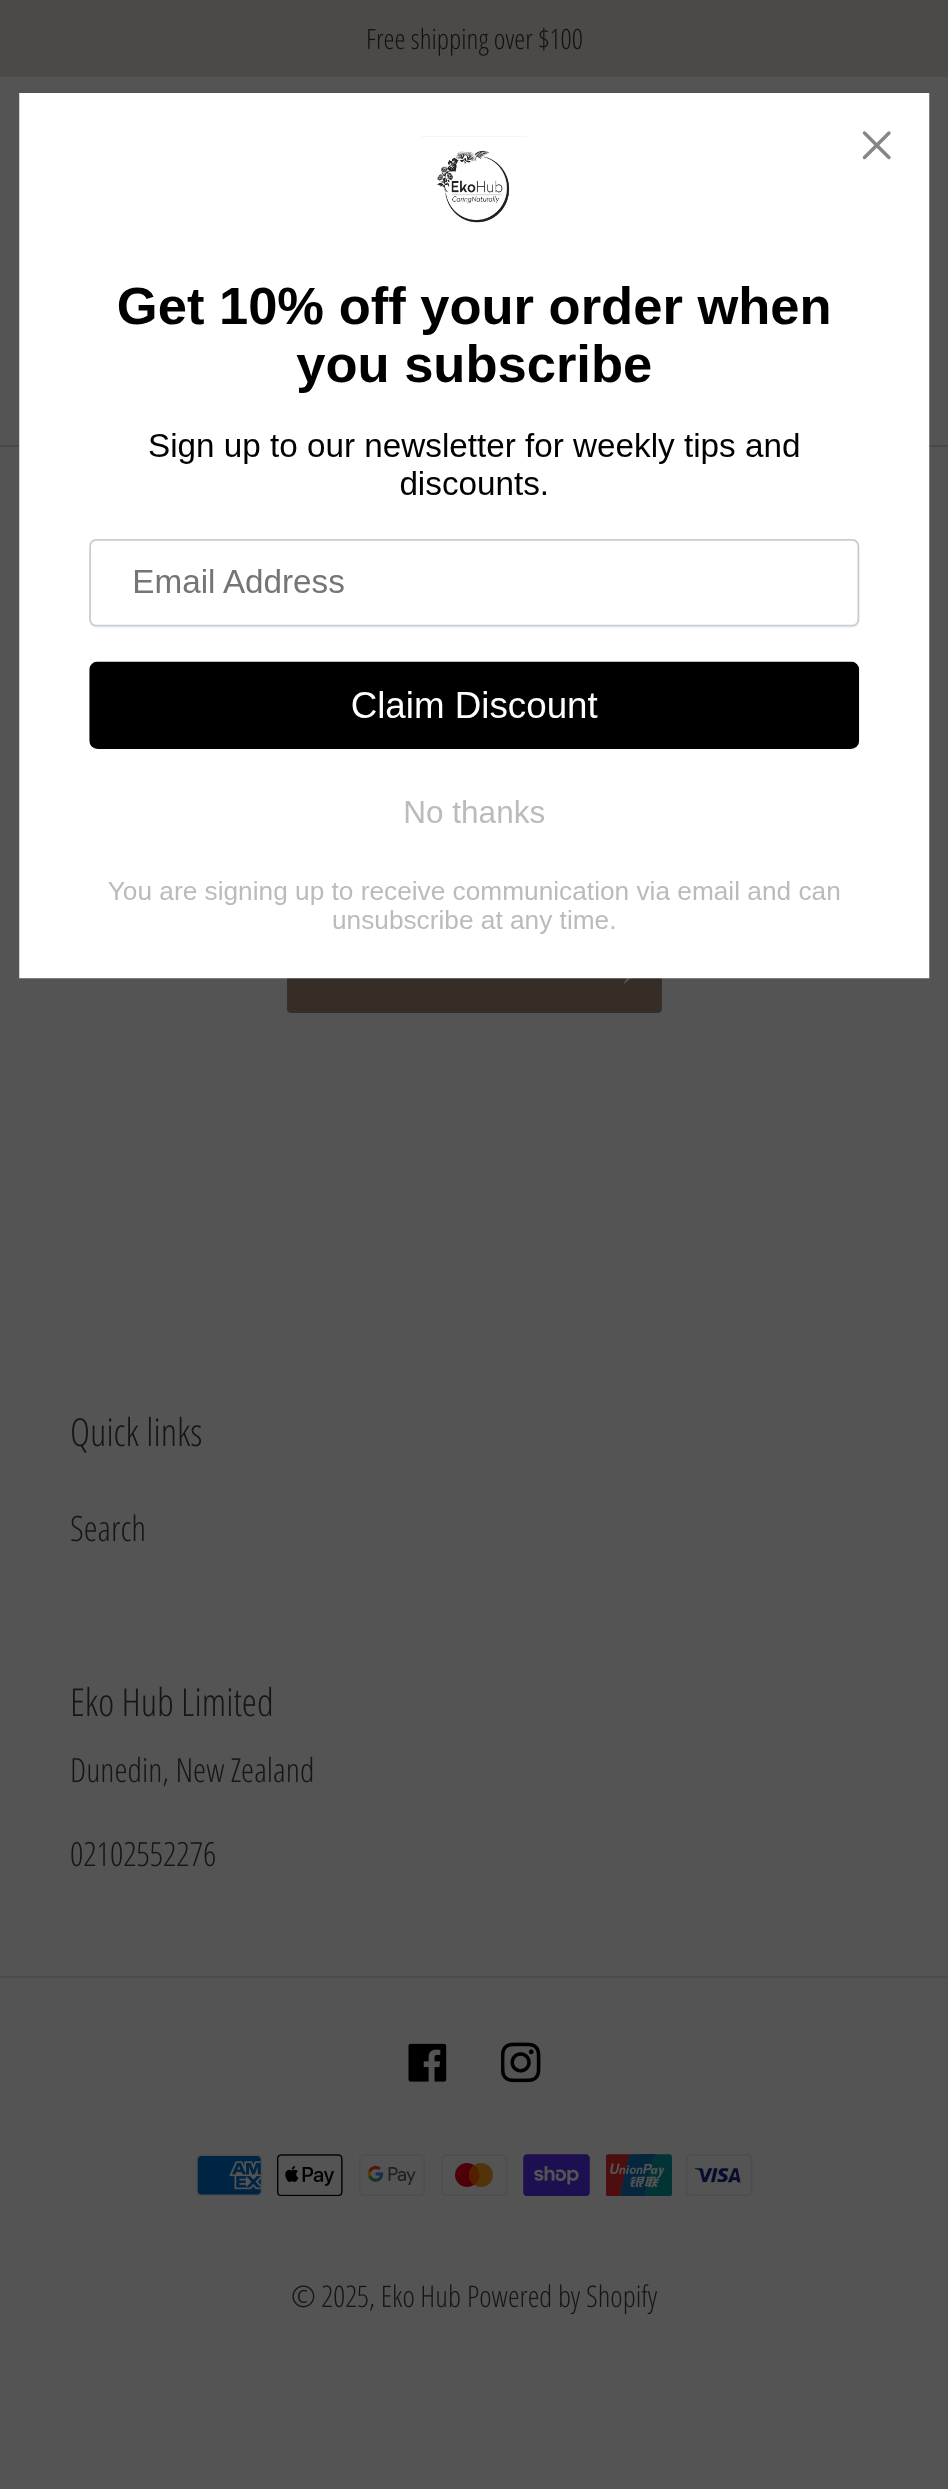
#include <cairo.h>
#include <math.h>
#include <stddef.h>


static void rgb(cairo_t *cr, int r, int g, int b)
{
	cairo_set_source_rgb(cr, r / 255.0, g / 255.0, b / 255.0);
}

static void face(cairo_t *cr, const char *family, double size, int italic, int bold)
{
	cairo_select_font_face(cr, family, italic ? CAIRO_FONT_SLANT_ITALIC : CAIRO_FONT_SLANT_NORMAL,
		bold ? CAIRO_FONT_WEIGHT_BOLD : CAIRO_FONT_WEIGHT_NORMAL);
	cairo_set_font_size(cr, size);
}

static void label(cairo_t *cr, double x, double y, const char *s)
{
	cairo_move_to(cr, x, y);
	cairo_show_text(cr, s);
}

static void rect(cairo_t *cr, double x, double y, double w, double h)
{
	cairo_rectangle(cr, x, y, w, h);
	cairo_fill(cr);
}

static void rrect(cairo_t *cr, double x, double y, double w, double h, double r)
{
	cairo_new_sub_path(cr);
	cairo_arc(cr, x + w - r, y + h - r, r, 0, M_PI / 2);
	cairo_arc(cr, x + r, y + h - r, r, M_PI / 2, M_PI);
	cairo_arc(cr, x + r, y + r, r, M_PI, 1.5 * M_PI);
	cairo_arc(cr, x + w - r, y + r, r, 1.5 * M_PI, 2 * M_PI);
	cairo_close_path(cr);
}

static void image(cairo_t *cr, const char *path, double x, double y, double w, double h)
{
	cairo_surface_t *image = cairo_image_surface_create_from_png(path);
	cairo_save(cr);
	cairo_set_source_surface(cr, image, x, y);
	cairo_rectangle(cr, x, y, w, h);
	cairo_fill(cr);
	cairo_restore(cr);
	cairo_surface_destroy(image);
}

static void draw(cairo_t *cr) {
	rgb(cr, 255, 255, 255);
	cairo_paint(cr);
	rgb(cr, 232, 225, 219);
	rect(cr, 0, 0, 948, 77);
	face(cr, "Open Sans Condensed Light", 28, 0, 0);
	rgb(cr, 56, 56, 56);
	label(cr, 366, 49, "Free shipping over $100");
	rgb(cr, 226, 218, 215);
	rect(cr, 0, 445, 948, 2);
	rgb(cr, 163, 137, 116);
	rrect(cr, 287, 935, 375, 78, 4);
	cairo_fill(cr);
	image(cr, "image1.png", 600, 978, 32, 6);
	face(cr, "Open Sans Condensed Light", 38.5, 0, 0);
	rgb(cr, 61, 66, 70);
	label(cr, 70, 1446, "Quick links");
	face(cr, "Open Sans Condensed Light", 35, 0, 0);
	label(cr, 70, 1541, "Search");
	face(cr, "Open Sans Condensed Light", 38.5, 0, 0);
	label(cr, 70, 1716, "Eko Hub Limited");
	face(cr, "Open Sans Condensed Light", 33.25, 0, 0);
	label(cr, 70, 1782, "Dunedin, New Zealand");
	label(cr, 70, 1866, "02102552276");
	rgb(cr, 230, 230, 230);
	rect(cr, 0, 1976, 948, 2);
	image(cr, "image2.png", 408, 2043, 39, 39);
	image(cr, "image3.png", 501, 2042, 40, 41);
	image(cr, "image4.png", 196, 2154, 67, 42);
	image(cr, "image5.png", 277, 2154, 66, 42);
	image(cr, "image6.png", 359, 2154, 66, 42);
	image(cr, "image7.png", 441, 2154, 67, 42);
	image(cr, "image8.png", 523, 2154, 67, 42);
	image(cr, "image9.png", 606, 2154, 66, 42);
	image(cr, "image10.png", 686, 2154, 67, 42);
	face(cr, "Open Sans Condensed Light", 29.75, 0, 0);
	rgb(cr, 61, 66, 70);
	label(cr, 291, 2307, "© 2025, Eko Hub");
	label(cr, 467, 2307, "Powered by Shopify");
	image(cr, "image0.png", 0, 0, 948, 2489);
}

int main(void) {
	cairo_surface_t *surface = cairo_image_surface_create(CAIRO_FORMAT_RGB24, 948, 2489);
	cairo_t *cr = cairo_create(surface);
	cairo_font_options_t *options = cairo_font_options_create();
	cairo_font_options_set_hint_metrics(options, CAIRO_HINT_METRICS_OFF);
	cairo_font_options_set_hint_style(options, CAIRO_HINT_STYLE_NONE);
	cairo_set_font_options(cr, options);
	cairo_set_miter_limit(cr, 4);
	draw(cr);
	cairo_surface_write_to_png(surface, "render.png");
	cairo_font_options_destroy(options);
	cairo_destroy(cr);
	cairo_surface_destroy(surface);
	return 0;
}
